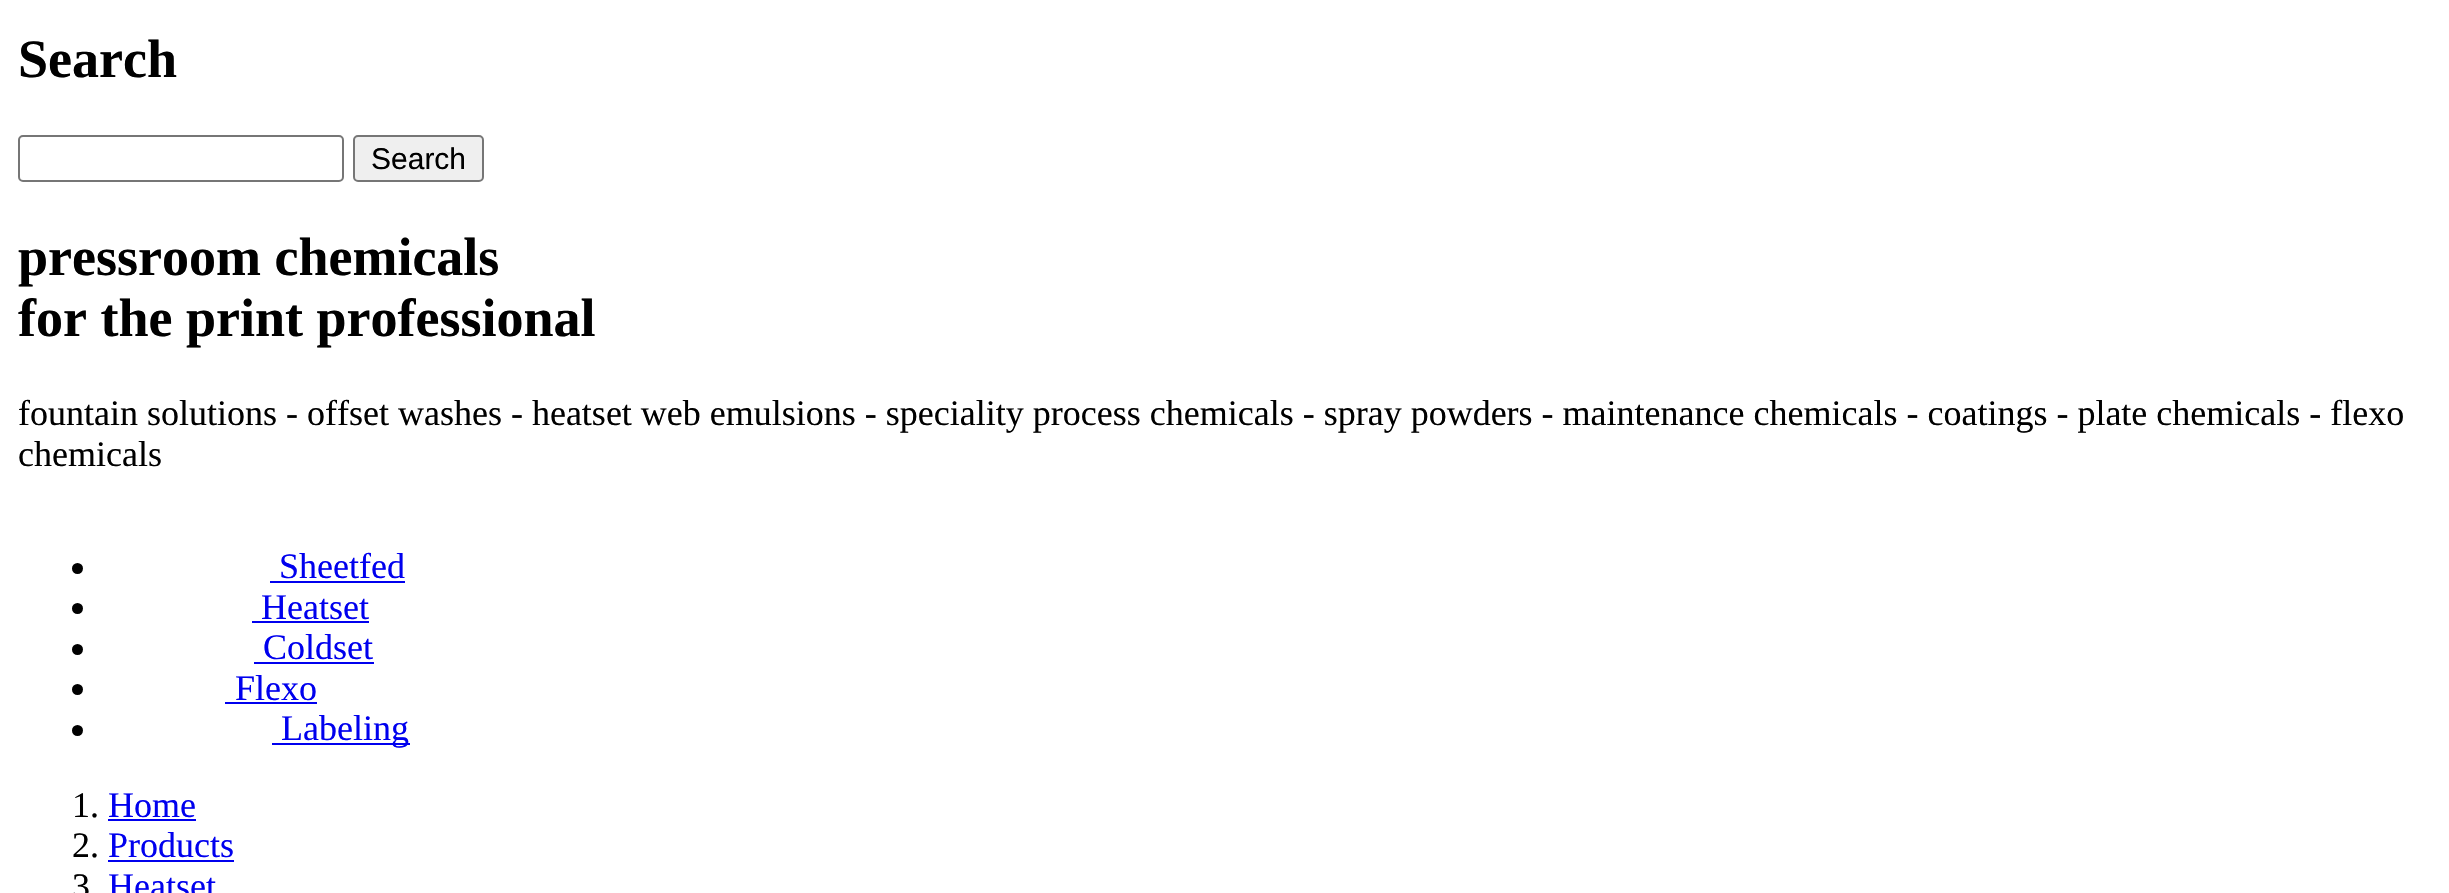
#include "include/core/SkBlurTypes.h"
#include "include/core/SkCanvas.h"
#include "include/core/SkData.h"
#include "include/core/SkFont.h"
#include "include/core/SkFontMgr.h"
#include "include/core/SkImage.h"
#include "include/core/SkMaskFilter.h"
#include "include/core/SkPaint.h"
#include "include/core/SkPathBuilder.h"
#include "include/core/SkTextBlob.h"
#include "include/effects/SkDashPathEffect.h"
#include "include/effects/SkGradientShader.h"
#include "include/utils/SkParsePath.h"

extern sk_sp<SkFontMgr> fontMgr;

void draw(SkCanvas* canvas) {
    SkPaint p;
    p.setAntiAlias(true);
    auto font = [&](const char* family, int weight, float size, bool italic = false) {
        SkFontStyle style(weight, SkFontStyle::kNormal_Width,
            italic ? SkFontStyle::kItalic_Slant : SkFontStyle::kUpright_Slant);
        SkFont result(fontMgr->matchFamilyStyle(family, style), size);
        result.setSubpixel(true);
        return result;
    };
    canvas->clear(0xFFFFFFFF);
    auto font1 = font("Liberation Serif", 700, 54);
    p.setColor(0xFF000000);
    canvas->drawString("Search", 18, 77, font1, p);
    p.setStyle(SkPaint::kStroke_Style);
    p.setStrokeWidth(2);
    p.setColor(0xFF767676);
    canvas->drawRoundRect(SkRect::MakeLTRB(19, 136, 343, 181), 4, 4, p);
    p.setStyle(SkPaint::kFill_Style);
    p.setColor(0xFFEFEFEF);
    canvas->drawRoundRect(SkRect::MakeLTRB(354, 136, 483, 181), 4, 4, p);
    p.setStyle(SkPaint::kStroke_Style);
    p.setColor(0xFF767676);
    canvas->drawRoundRect(SkRect::MakeLTRB(354, 136, 483, 181), 4, 4, p);
    auto font2 = font("Liberation Sans", 400, 30);
    p.setStyle(SkPaint::kFill_Style);
    p.setColor(0xFF000000);
    canvas->drawString("Search", 371, 169, font2, p);
    canvas->drawString("pressroom chemicals", 18, 275, font1, p);
    canvas->drawString("for the print professional", 18, 336, font1, p);
    auto font3 = font("Liberation Serif", 400, 36);
    canvas->drawString("fountain solutions - offset washes - heatset web emulsions - speciality process chemicals - spray powders - maintenance chemicals - coatings - plate chemicals - flexo", 18, 425, font3, p);
    canvas->drawString("chemicals", 18, 466, font3, p);
    canvas->drawCircle(77.5f, 568.5f, 5.5f, p);
    p.setColor(0xFF0000EE);
    canvas->drawString("Sheetfed", 279, 578, font3, p);
    canvas->drawRect(SkRect::MakeLTRB(270, 581, 405, 583), p);
    p.setColor(0xFF000000);
    canvas->drawCircle(77.5f, 608.5f, 5.5f, p);
    p.setColor(0xFF0000EE);
    canvas->drawString("Heatset", 261, 619, font3, p);
    canvas->drawRect(SkRect::MakeLTRB(252, 621, 369, 623), p);
    p.setColor(0xFF000000);
    canvas->drawCircle(77.5f, 649.5f, 5.5f, p);
    p.setColor(0xFF0000EE);
    canvas->drawString("Coldset", 263, 659, font3, p);
    canvas->drawRect(SkRect::MakeLTRB(254, 662, 374, 664), p);
    p.setColor(0xFF000000);
    canvas->drawCircle(77.5f, 689.5f, 5.5f, p);
    p.setColor(0xFF0000EE);
    canvas->drawString("Flexo", 235, 700, font3, p);
    canvas->drawRect(SkRect::MakeLTRB(225, 702, 317, 704), p);
    p.setColor(0xFF000000);
    canvas->drawCircle(77.5f, 730.5f, 5.5f, p);
    p.setColor(0xFF0000EE);
    canvas->drawRect(SkRect::MakeLTRB(272, 743, 410, 745), p);
    canvas->drawString("Labeling", 281, 740, font3, p);
    p.setColor(0xFF000000);
    canvas->drawString("1.", 72, 817, font3, p);
    p.setColor(0xFF0000EE);
    canvas->drawString("Home", 108, 817, font3, p);
    canvas->drawRect(SkRect::MakeLTRB(108, 819, 196, 821), p);
    p.setColor(0xFF000000);
    canvas->drawString("2.", 72, 857, font3, p);
    p.setColor(0xFF0000EE);
    canvas->drawString("Products", 108, 857, font3, p);
    canvas->drawRect(SkRect::MakeLTRB(108, 860, 234, 862), p);
    p.setColor(0xFF000000);
    canvas->drawString("3", 72, 898, font3, p);
    p.setColor(0xFF0000EE);
    canvas->drawString("Heatset", 108, 898, font3, p);
}
